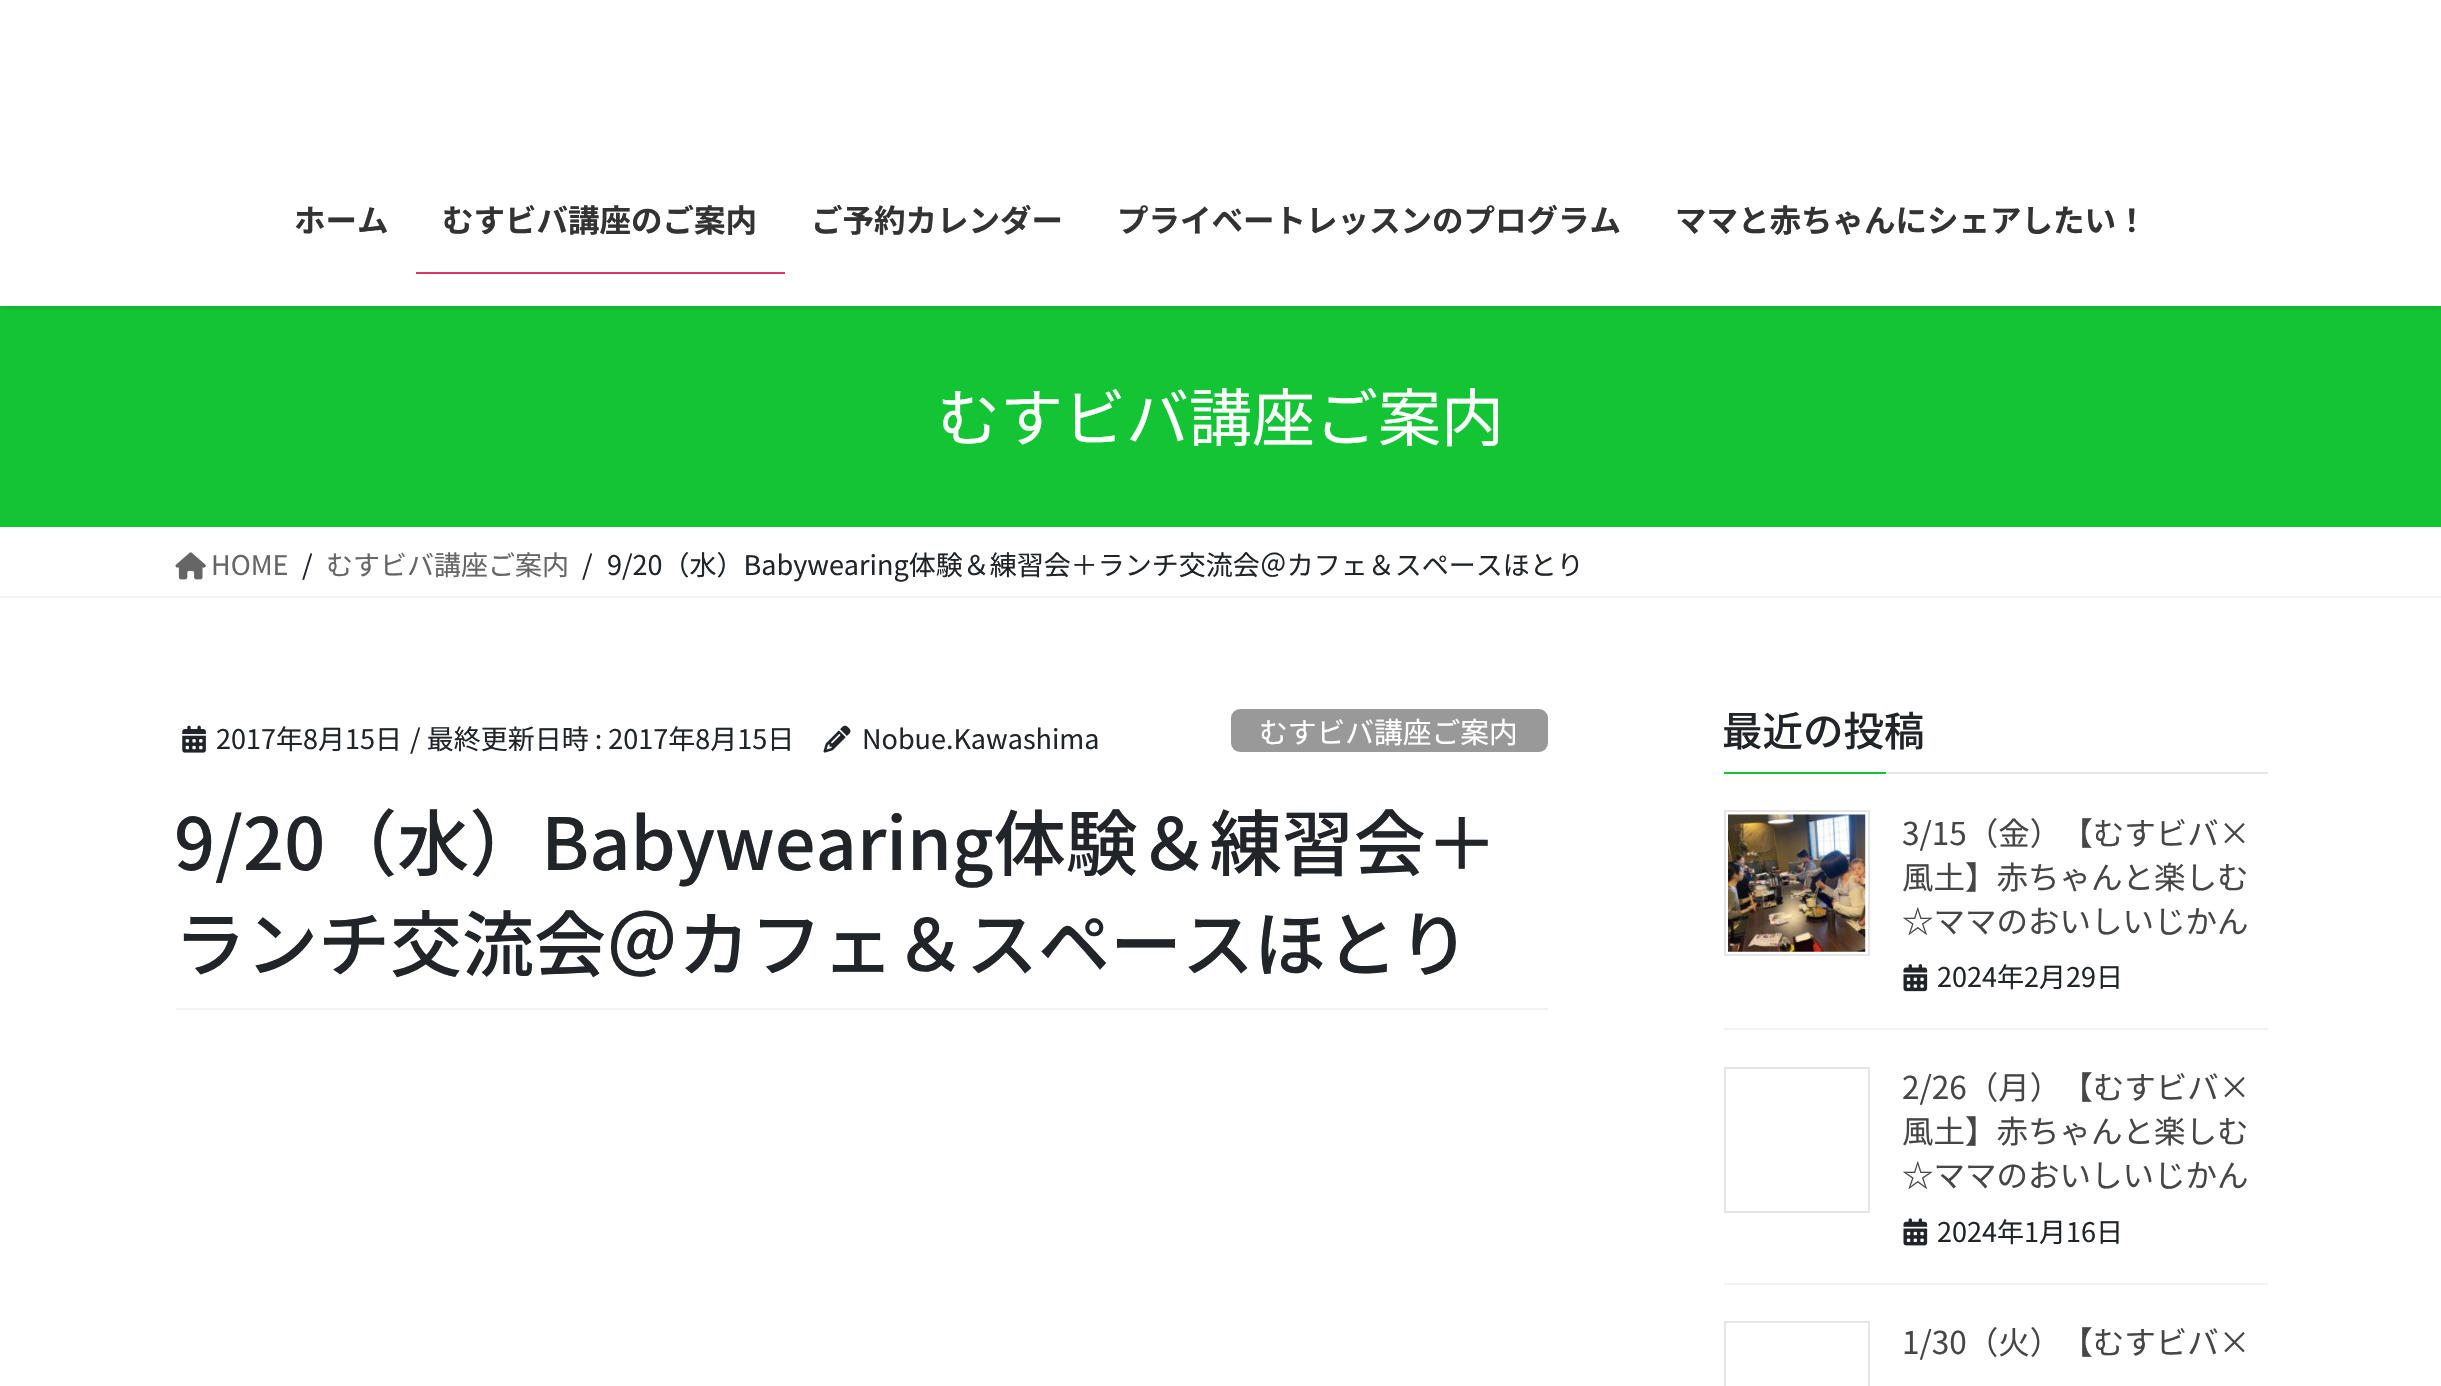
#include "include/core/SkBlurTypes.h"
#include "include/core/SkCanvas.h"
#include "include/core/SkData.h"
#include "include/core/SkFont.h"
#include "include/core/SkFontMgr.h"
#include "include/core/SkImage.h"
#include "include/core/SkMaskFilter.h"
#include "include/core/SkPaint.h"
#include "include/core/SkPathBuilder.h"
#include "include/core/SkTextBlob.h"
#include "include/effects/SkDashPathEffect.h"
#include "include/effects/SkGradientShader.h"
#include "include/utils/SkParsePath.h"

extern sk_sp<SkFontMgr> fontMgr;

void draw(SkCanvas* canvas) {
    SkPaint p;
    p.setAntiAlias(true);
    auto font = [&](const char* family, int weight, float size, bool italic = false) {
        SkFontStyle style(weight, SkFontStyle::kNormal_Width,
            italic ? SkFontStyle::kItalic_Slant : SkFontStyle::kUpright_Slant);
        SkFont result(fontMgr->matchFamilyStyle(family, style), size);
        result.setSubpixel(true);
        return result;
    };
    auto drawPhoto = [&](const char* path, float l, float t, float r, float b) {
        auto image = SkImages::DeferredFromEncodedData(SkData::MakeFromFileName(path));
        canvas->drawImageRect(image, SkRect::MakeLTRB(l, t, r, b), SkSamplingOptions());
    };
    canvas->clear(0xFFFFFFFF);
    p.setColor(0xFF13C434);
    canvas->drawRect(SkRect::MakeLTRB(0, 306, 2441, 527), p);
    canvas->save();
    canvas->clipRect(SkRect::MakeLTRB(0, 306, 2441, 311));
    p.setColor(0x1A000000);
    p.setMaskFilter(SkMaskFilter::MakeBlur(kNormal_SkBlurStyle, 3.5f));
    canvas->drawRect(SkRect::MakeLTRB(0, 2, 2441, 308), p);
    p.setMaskFilter(nullptr);
    canvas->restore();
    auto font1 = font("Noto Sans JP", 700, 31.5f);
    p.setColor(0xFF333333);
    canvas->drawString("ホーム", 294, 232, font1, p);
    canvas->drawString("むすビバ講座のご案内", 442, 232, font1, p);
    p.setColor(0xFFDD3360);
    canvas->drawRect(SkRect::MakeLTRB(416, 272, 785, 274), p);
    p.setColor(0xFF333333);
    {
        const struct { const char* s; float x, y; } items[] = {
            {"ご予約カレンダー", 811, 232},
            {"プライベートレッスンのプログラム", 1117, 232},
            {"ママと赤ちゃんにシェアしたい！", 1675, 232},
        };
        for (auto [s, x, y] : items) {
            canvas->drawString(s, x, y, font1, p);
        }
    }
    auto font2 = font("Noto Sans JP", 400, 63);
    p.setColor(0xFFFFFFFF);
    canvas->drawString("むすビバ講座ご案内", 937, 441, font2, p);
    p.setColor(0xFFF2F2F2);
    canvas->drawRect(SkRect::MakeLTRB(0, 596, 2441, 598), p);
    drawPhoto("media/1.png", 175, 552, 206, 580);
    auto font3 = font("Noto Sans JP", 400, 27);
    p.setColor(0xFF666666);
    canvas->drawString("HOME", 211, 575, font3, p);
    p.setColor(0xFF212529);
    canvas->drawString("/", 302, 575, font3, p);
    p.setColor(0xFF666666);
    canvas->drawString("むすビバ講座ご案内", 326, 575, font3, p);
    p.setColor(0xFF212529);
    canvas->drawString("/", 582, 575, font3, p);
    canvas->drawString("9/20（水）Babywearing体験＆練習会＋ランチ交流会＠カフェ＆スペースほとり", 607, 575, font3, p);
    p.setColor(0xFFF2F2F2);
    canvas->drawRect(SkRect::MakeLTRB(176, 1008, 1548, 1010), p);
    drawPhoto("media/2.png", 182, 725, 206, 753);
    p.setColor(0xFF212529);
    canvas->drawString("2017年8月15日", 216, 749, font3, p);
    canvas->drawString("/ 最終更新日時 : 2017年8月15日", 410, 749, font3, p);
    drawPhoto("media/3.png", 823, 725, 851, 753);
    canvas->drawString("Nobue.Kawashima", 862, 749, font3, p);
    p.setColor(0xFF999999);
    canvas->drawRoundRect(SkRect::MakeLTRB(1231, 709, 1548, 752), 9, 9, p);
    auto font4 = font("Noto Sans JP", 400, 28.75f);
    p.setColor(0xFFFFFFFF);
    canvas->drawString("むすビバ講座ご案内", 1259, 743, font4, p);
    auto font5 = font("Noto Sans JP", 500, 72);
    p.setColor(0xFF212529);
    canvas->drawString("9/20（水）Babywearing体験＆練習会＋", 174, 870, font5, p);
    canvas->drawString("ランチ交流会＠カフェ＆スペースほとり", 174, 971, font5, p);
    p.setColor(0xFFE6E6E6);
    canvas->drawRect(SkRect::MakeLTRB(1886, 772, 2268, 774), p);
    auto font6 = font("Noto Sans JP", 500, 40.5f);
    p.setColor(0xFF212529);
    canvas->drawString("最近の投稿", 1722, 746, font6, p);
    p.setColor(0xFF13C434);
    canvas->drawRect(SkRect::MakeLTRB(1724, 772, 1886, 774), p);
    p.setColor(0xFFF2F2F2);
    canvas->drawRect(SkRect::MakeLTRB(1724, 1028, 2268, 1030), p);
    p.setStyle(SkPaint::kStroke_Style);
    p.setStrokeWidth(2);
    p.setColor(0xFFE5E5E5);
    canvas->drawRect(SkRect::MakeLTRB(1725, 811, 1869, 955), p);
    drawPhoto("media/4.png", 1728, 814, 1866, 952);
    auto font7 = font("Noto Sans JP", 400, 31.5f);
    p.setStyle(SkPaint::kFill_Style);
    p.setColor(0xFF464646);
    {
        const struct { const char* s; float x, y; } items[] = {
            {"3/15（金）【むすビバ×", 1902, 845},
            {"風土】赤ちゃんと楽しむ", 1902, 889},
            {"☆ママのおいしいじかん", 1902, 933},
        };
        for (auto [s, x, y] : items) {
            canvas->drawString(s, x, y, font7, p);
        }
    }
    drawPhoto("media/5.png", 1903, 964, 1928, 992);
    p.setColor(0xFF212529);
    canvas->drawString("2024年2月29日", 1937, 987, font3, p);
    p.setColor(0xFFF2F2F2);
    canvas->drawRect(SkRect::MakeLTRB(1724, 1283, 2268, 1285), p);
    p.setStyle(SkPaint::kStroke_Style);
    p.setColor(0xFFE5E5E5);
    canvas->drawRect(SkRect::MakeLTRB(1725, 1068, 1869, 1212), p);
    p.setStyle(SkPaint::kFill_Style);
    p.setColor(0xFF464646);
    {
        const struct { const char* s; float x, y; } items[] = {
            {"2/26（月）【むすビバ×", 1902, 1099},
            {"風土】赤ちゃんと楽しむ", 1902, 1143},
            {"☆ママのおいしいじかん", 1902, 1187},
        };
        for (auto [s, x, y] : items) {
            canvas->drawString(s, x, y, font7, p);
        }
    }
    drawPhoto("media/6.png", 1903, 1218, 1928, 1246);
    p.setColor(0xFF212529);
    canvas->drawString("2024年1月16日", 1937, 1242, font3, p);
    p.setStyle(SkPaint::kStroke_Style);
    p.setColor(0xFFE5E5E5);
    canvas->drawRect(SkRect::MakeLTRB(1725, 1322, 1869, 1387), p);
    p.setStyle(SkPaint::kFill_Style);
    p.setColor(0xFF464646);
    canvas->drawString("1/30（火）【むすビバ×", 1902, 1354, font7, p);
}
